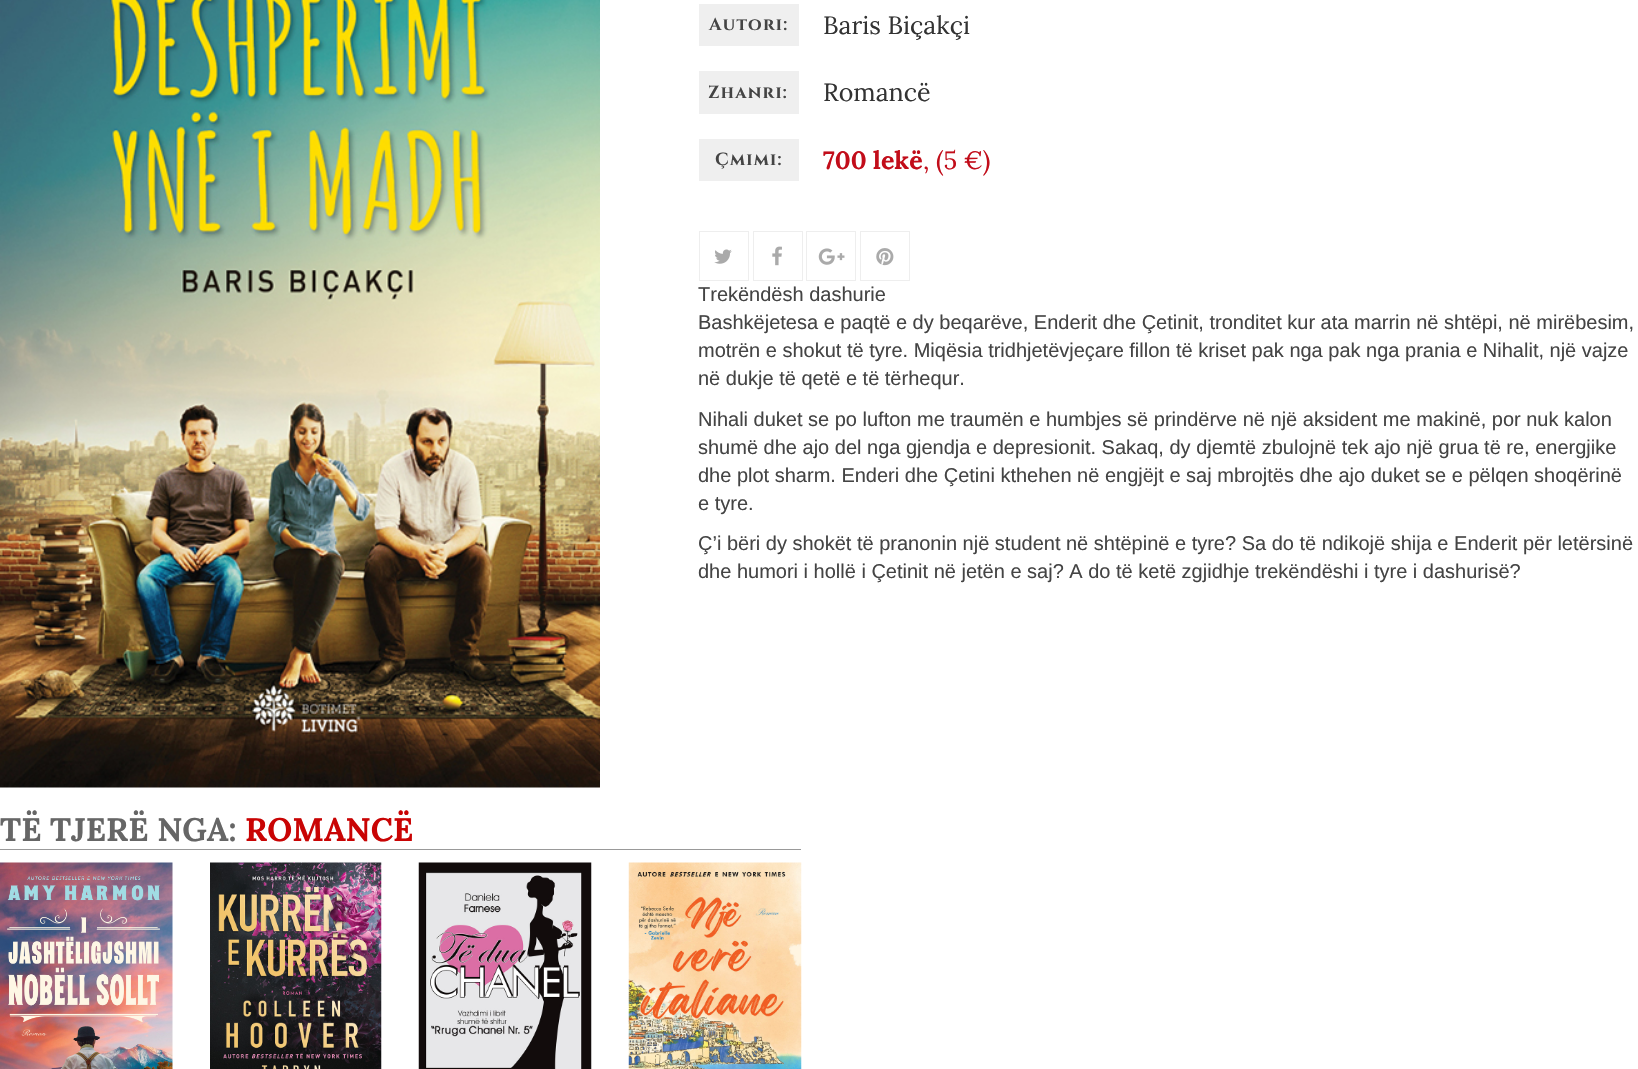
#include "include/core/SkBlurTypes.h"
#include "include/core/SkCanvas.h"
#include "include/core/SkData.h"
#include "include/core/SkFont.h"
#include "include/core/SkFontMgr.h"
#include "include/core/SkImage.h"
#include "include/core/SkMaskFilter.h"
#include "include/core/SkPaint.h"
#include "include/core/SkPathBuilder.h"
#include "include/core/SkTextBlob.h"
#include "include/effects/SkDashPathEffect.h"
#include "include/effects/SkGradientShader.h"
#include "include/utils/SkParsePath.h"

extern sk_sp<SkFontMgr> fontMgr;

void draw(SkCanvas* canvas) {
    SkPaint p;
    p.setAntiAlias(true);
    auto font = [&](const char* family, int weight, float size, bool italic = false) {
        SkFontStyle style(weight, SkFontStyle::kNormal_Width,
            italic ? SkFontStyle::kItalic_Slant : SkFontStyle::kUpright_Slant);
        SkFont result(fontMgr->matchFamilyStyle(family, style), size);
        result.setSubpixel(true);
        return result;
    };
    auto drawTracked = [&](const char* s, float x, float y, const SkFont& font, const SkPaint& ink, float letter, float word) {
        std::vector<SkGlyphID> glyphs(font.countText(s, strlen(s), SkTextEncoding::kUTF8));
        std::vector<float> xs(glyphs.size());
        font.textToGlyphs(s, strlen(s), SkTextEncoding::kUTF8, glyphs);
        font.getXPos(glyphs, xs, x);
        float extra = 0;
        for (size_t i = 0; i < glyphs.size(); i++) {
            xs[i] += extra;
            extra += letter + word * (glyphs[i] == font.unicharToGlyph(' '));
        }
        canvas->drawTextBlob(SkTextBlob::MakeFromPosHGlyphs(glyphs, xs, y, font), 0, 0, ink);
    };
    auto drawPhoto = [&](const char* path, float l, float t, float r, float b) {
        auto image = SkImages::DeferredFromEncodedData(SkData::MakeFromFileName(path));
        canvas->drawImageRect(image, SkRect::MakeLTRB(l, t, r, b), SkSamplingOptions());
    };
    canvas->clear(0xFFFFFFFF);
    drawPhoto("media/1.png", 0, 0, 600, 788);
    p.setColor(0xFFEFEFEF);
    canvas->drawRect(SkRect::MakeLTRB(699, 4, 799, 46), p);
    auto font1 = font("Cinzel", 700, 17.5f);
    p.setColor(0xFF444444);
    drawTracked("Autori:", 709, 30, font1, p, 1.25f, 0);
    auto font2 = font("Lora", 400, 25);
    p.setColor(0xFF333333);
    canvas->drawString("Baris Biçakçi", 823, 34, font2, p);
    p.setColor(0xFFEFEFEF);
    canvas->drawRect(SkRect::MakeLTRB(699, 71, 799, 114), p);
    p.setColor(0xFF444444);
    drawTracked("Zhanri:", 708, 98, font1, p, 1.25f, 0);
    p.setColor(0xFF333333);
    canvas->drawString("Romancë", 823, 101, font2, p);
    p.setColor(0xFFEFEFEF);
    canvas->drawRect(SkRect::MakeLTRB(699, 139, 799, 181), p);
    p.setColor(0xFF444444);
    drawTracked("Çmimi:", 715, 165, font1, p, 1.25f, 0);
    auto font3 = font("Lora", 700, 25);
    p.setColor(0xFFC20D1A);
    canvas->drawString("700 lekë", 823, 169, font3, p);
    canvas->drawString(", (5 €)", 923, 169, font2, p);
    p.setStyle(SkPaint::kStroke_Style);
    p.setStrokeWidth(1);
    p.setColor(0xFFEEEEEE);
    canvas->drawRect(SkRect::MakeLTRB(699.5f, 231.5f, 748.5f, 280.5f), p);
    drawPhoto("media/2.png", 714, 249, 732, 264);
    canvas->drawRect(SkRect::MakeLTRB(753.5f, 231.5f, 802.5f, 280.5f), p);
    drawPhoto("media/3.png", 772, 246, 782, 266);
    canvas->drawRect(SkRect::MakeLTRB(806.5f, 231.5f, 855.5f, 280.5f), p);
    drawPhoto("media/4.png", 818, 248, 845, 265);
    canvas->drawRect(SkRect::MakeLTRB(860.5f, 231.5f, 909.5f, 280.5f), p);
    drawPhoto("media/5.png", 876, 248, 894, 266);
    auto font4 = font("Liberation Sans", 400, 20);
    p.setStyle(SkPaint::kFill_Style);
    p.setColor(0xFF444444);
    {
        const struct { const char* s; float x, y; } items[] = {
            {"Trekëndësh dashurie", 698, 301},
            {"Bashkëjetesa e paqtë e dy beqarëve, Enderit dhe Çetinit, tronditet kur ata marrin në shtëpi, në mirëbesim,", 698, 329},
            {"motrën e shokut të tyre. Miqësia tridhjetëvjeçare fillon të kriset pak nga pak nga prania e Nihalit, një vajze", 698, 357},
            {"në dukje të qetë e të tërhequr.", 698, 385},
            {"Nihali duket se po lufton me traumën e humbjes së prindërve në një aksident me makinë, por nuk kalon", 698, 426},
            {"shumë dhe ajo del nga gjendja e depresionit. Sakaq, dy djemtë zbulojnë tek ajo një grua të re, energjike", 698, 454},
            {"dhe plot sharm. Enderi dhe Çetini kthehen në engjëjt e saj mbrojtës dhe ajo duket se e pëlqen shoqërinë", 698, 482},
            {"e tyre.", 698, 510},
            {"Ç’i bëri dy shokët të pranonin një student në shtëpinë e tyre? Sa do të ndikojë shija e Enderit për letërsinë", 698, 550},
            {"dhe humori i hollë i Çetinit në jetën e saj? A do të ketë zgjidhje trekëndëshi i tyre i dashurisë?", 698, 578},
        };
        for (auto [s, x, y] : items) {
            canvas->drawString(s, x, y, font4, p);
        }
    }
    p.setColor(0xFF999999);
    canvas->drawRect(SkRect::MakeLTRB(0, 849, 801, 850), p);
    auto font5 = font("Lora", 700, 32.5f);
    p.setColor(0xFF666666);
    canvas->drawString("TË TJERË NGA:", 0, 841, font5, p);
    p.setColor(0xFFC90404);
    canvas->drawString("ROMANCË", 245, 841, font5, p);
    drawPhoto("media/6.png", 0, 862, 173, 1069);
    drawPhoto("media/7.png", 210, 862, 382, 1069);
    drawPhoto("media/8.png", 418, 862, 592, 1069);
    drawPhoto("media/9.png", 628, 862, 802, 1069);
}
